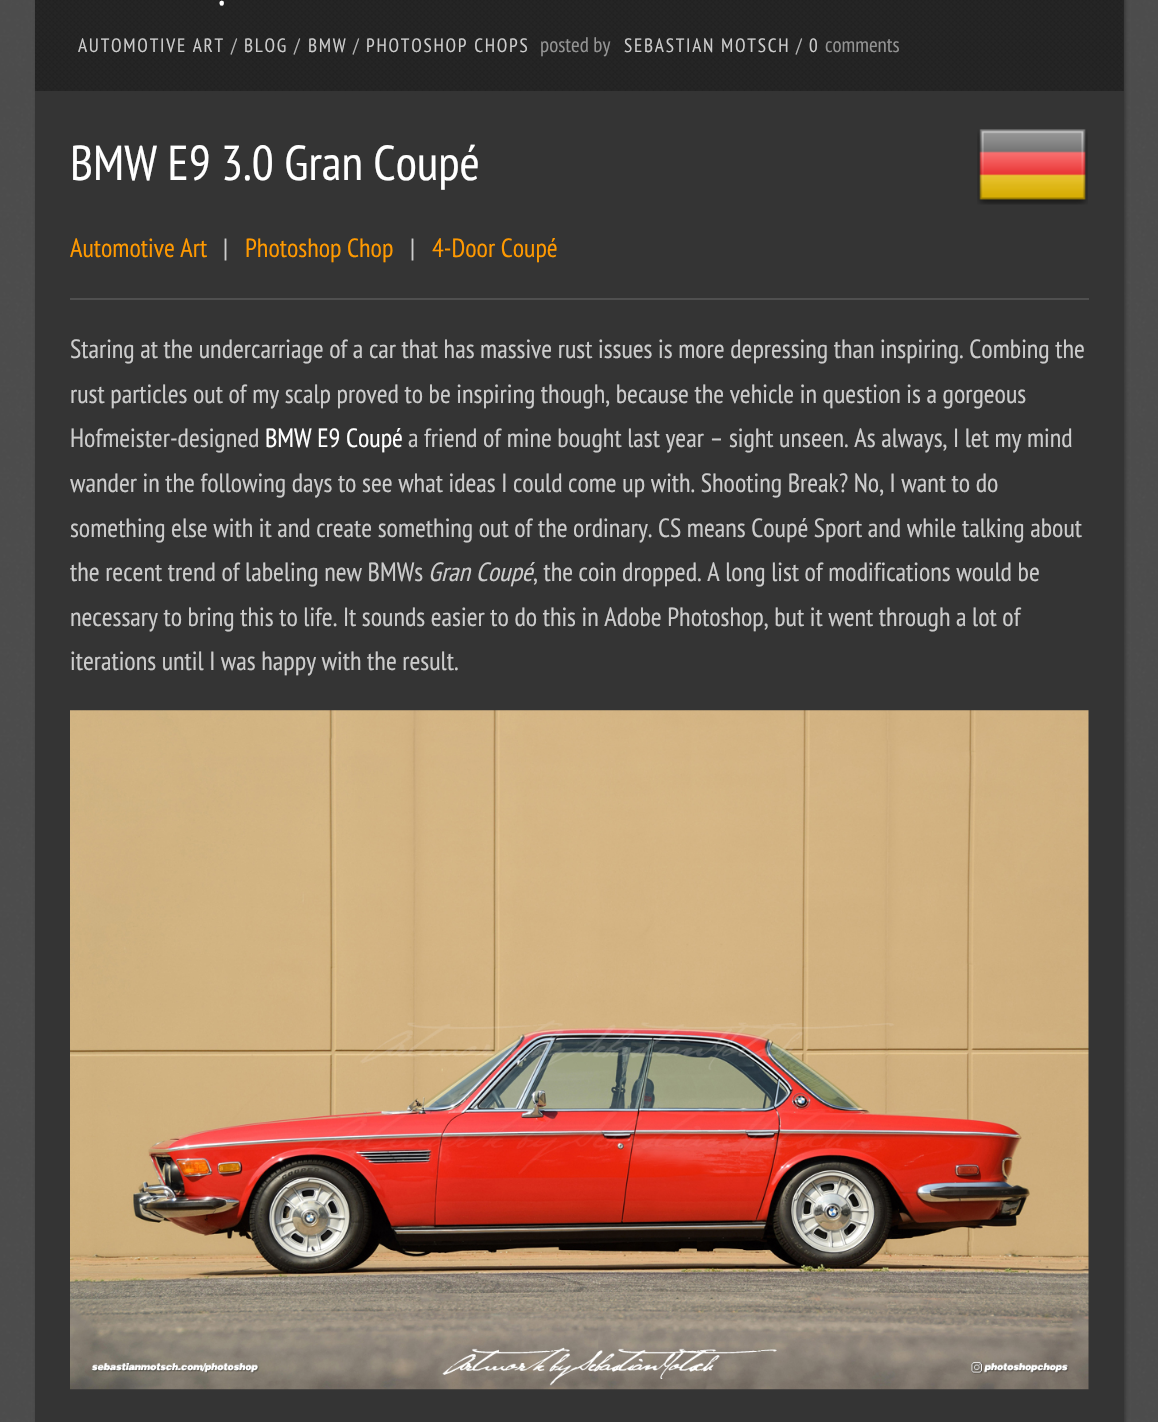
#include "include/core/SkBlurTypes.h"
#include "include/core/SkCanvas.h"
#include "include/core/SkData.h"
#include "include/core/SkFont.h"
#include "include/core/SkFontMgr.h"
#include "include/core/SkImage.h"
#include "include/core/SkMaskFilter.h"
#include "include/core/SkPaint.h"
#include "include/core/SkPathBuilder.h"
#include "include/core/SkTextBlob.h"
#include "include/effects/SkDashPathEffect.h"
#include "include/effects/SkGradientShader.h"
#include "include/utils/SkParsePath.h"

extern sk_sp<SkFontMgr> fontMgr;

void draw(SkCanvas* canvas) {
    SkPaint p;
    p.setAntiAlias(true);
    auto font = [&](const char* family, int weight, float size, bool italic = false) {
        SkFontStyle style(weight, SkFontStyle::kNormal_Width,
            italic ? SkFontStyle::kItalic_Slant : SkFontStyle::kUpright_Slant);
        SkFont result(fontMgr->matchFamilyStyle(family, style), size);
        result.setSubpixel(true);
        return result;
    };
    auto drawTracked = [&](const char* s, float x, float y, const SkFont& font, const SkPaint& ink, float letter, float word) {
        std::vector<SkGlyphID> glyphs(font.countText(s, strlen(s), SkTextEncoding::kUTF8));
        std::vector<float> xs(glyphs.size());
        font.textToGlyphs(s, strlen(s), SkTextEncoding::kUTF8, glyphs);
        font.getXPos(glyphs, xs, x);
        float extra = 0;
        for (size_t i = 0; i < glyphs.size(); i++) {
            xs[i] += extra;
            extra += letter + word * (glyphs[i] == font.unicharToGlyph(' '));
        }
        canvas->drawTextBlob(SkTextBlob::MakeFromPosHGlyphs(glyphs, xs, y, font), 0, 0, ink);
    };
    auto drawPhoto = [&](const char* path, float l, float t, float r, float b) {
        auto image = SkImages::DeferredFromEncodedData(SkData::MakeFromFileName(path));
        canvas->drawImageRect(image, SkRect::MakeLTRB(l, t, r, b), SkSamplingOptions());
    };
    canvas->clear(0xFF6A6A6A);
    drawPhoto("media/1.png", 0, 0, 1158, 1422);
    p.setColor(0xCC2B2B2B);
    p.setMaskFilter(SkMaskFilter::MakeBlur(kNormal_SkBlurStyle, 2));
    canvas->drawRect(SkRect::MakeLTRB(37, -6, 1125, 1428), p);
    p.setMaskFilter(nullptr);
    p.setColor(0xFF343434);
    canvas->drawRect(SkRect::MakeLTRB(35, 91, 1124, 1422), p);
    p.setColor(0xFF262626);
    canvas->drawRect(SkRect::MakeLTRB(35, 0, 1124, 91), p);
    drawPhoto("media/2.png", 35, 0, 1123, 91);
    auto font1 = font("PT Sans Narrow", 400, 42);
    p.setColor(0xFFFFFFFF);
    canvas->drawString(".", 218, 5, font1, p);
    auto font2 = font("PT Sans Narrow", 400, 19.25f);
    p.setColor(0xFFCCCCCC);
    drawTracked("AUTOMOTIVE ART", 78, 52, font2, p, 1.75f, 0);
    p.setColor(0xFFB5B5B5);
    drawTracked("/", 231, 52, font2, p, 1.75f, 0);
    p.setColor(0xFFCCCCCC);
    drawTracked("BLOG", 244, 52, font2, p, 1.75f, 0);
    p.setColor(0xFFB5B5B5);
    drawTracked("/", 294, 52, font2, p, 1.75f, 0);
    p.setColor(0xFFCCCCCC);
    drawTracked("BMW", 308, 52, font2, p, 1.75f, 0);
    p.setColor(0xFFB5B5B5);
    drawTracked("/", 353, 52, font2, p, 1.75f, 0);
    p.setColor(0xFFCCCCCC);
    drawTracked("PHOTOSHOP CHOPS", 366, 52, font2, p, 1.75f, 0);
    auto font3 = font("PT Sans Narrow", 400, 21);
    p.setColor(0xFF949494);
    canvas->drawString("posted by", 540, 52, font3, p);
    p.setColor(0xFFCCCCCC);
    drawTracked("SEBASTIAN MOTSCH", 624, 52, font2, p, 1.75f, 0);
    p.setColor(0xFFB5B5B5);
    drawTracked("/", 796, 52, font2, p, 1.75f, 0);
    p.setColor(0xFFCCCCCC);
    drawTracked("0", 809, 52, font2, p, 1.75f, 0);
    p.setColor(0xFF949494);
    canvas->drawString("comments", 825, 52, font3, p);
    auto font4 = font("PT Sans Narrow", 400, 49);
    p.setColor(0xFFFFFFFF);
    canvas->drawString("BMW E9 3.0 Gran Coupé", 70, 180, font4, p);
    drawPhoto("media/3.png", 977, 129, 1088, 205);
    auto font5 = font("PT Sans Narrow", 400, 26.25f);
    p.setColor(0xFFFF9900);
    canvas->drawString("Automotive Art", 70, 257, font5, p);
    p.setColor(0xFFCCCCCC);
    canvas->drawString("|", 223, 257, font5, p);
    p.setColor(0xFFFF9900);
    canvas->drawString("Photoshop Chop", 245, 257, font5, p);
    p.setColor(0xFFCCCCCC);
    canvas->drawString("|", 410, 257, font5, p);
    p.setColor(0xFFFF9900);
    canvas->drawString("4-Door Coupé", 432, 257, font5, p);
    p.setColor(0xFF4F4F4F);
    canvas->drawRect(SkRect::MakeLTRB(70, 298, 1089, 300), p);
    p.setColor(0xFFCCCCCC);
    {
        const struct { const char* s; float x, y; } items[] = {
            {"Staring at the undercarriage of a car that has massive rust issues is more depressing than inspiring. Combing the", 70, 358},
            {"rust particles out of my scalp proved to be inspiring though, because the vehicle in question is a gorgeous", 70, 403},
            {"Hofmeister-designed", 70, 447},
        };
        for (auto [s, x, y] : items) {
            canvas->drawString(s, x, y, font5, p);
        }
    }
    p.setColor(0xFFFFFFFF);
    canvas->drawString("BMW E9 Coupé", 265, 447, font5, p);
    p.setColor(0xFFCCCCCC);
    {
        const struct { const char* s; float x, y; } items[] = {
            {"a friend of mine bought last year – sight unseen. As always, I let my mind", 408, 447},
            {"wander in the following days to see what ideas I could come up with. Shooting Break? No, I want to do", 70, 492},
            {"something else with it and create something out of the ordinary. CS means Coupé Sport and while talking about", 70, 537},
            {"the recent trend of labeling new BMWs", 70, 581},
        };
        for (auto [s, x, y] : items) {
            canvas->drawString(s, x, y, font5, p);
        }
    }
    auto font6 = font("PT Sans Narrow", 400, 26.25f, true);
    canvas->drawString("Gran Coupé", 428, 581, font6, p);
    {
        const struct { const char* s; float x, y; } items[] = {
            {", the coin dropped. A long list of modifications would be", 533, 581},
            {"necessary to bring this to life. It sounds easier to do this in Adobe Photoshop, but it went through a lot of", 70, 626},
            {"iterations until I was happy with the result.", 70, 670},
        };
        for (auto [s, x, y] : items) {
            canvas->drawString(s, x, y, font5, p);
        }
    }
    drawPhoto("media/4.png", 70, 710, 1089, 1390);
}
